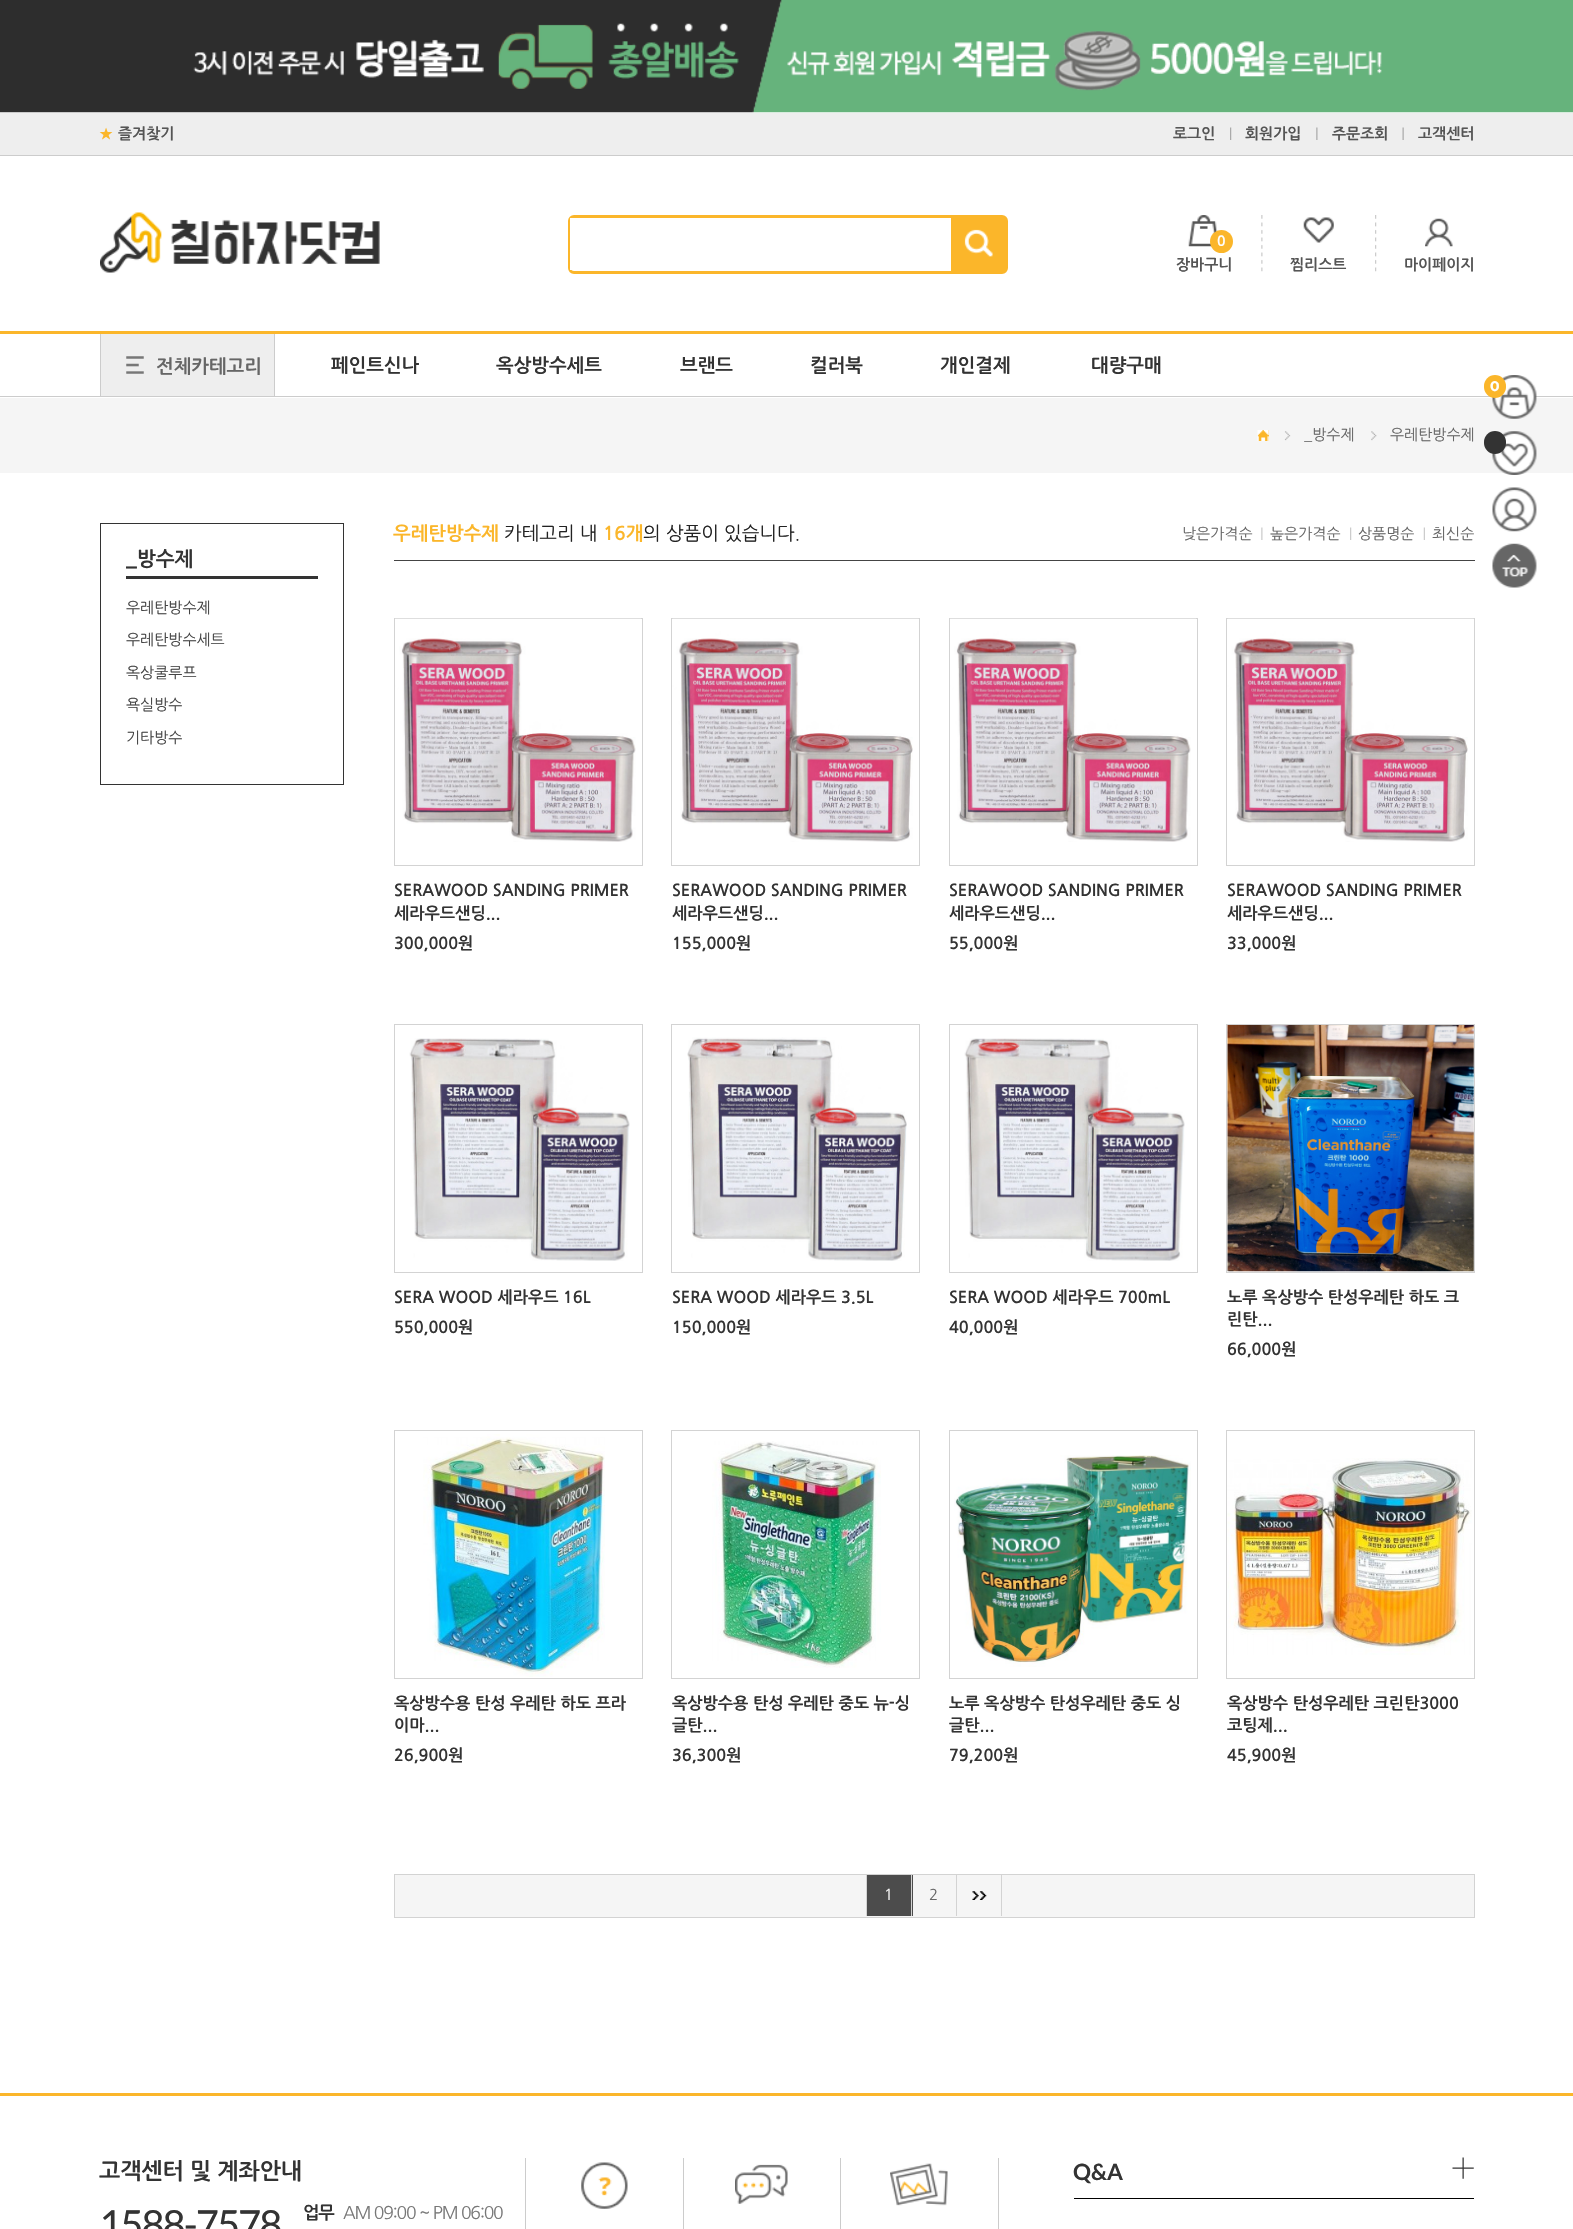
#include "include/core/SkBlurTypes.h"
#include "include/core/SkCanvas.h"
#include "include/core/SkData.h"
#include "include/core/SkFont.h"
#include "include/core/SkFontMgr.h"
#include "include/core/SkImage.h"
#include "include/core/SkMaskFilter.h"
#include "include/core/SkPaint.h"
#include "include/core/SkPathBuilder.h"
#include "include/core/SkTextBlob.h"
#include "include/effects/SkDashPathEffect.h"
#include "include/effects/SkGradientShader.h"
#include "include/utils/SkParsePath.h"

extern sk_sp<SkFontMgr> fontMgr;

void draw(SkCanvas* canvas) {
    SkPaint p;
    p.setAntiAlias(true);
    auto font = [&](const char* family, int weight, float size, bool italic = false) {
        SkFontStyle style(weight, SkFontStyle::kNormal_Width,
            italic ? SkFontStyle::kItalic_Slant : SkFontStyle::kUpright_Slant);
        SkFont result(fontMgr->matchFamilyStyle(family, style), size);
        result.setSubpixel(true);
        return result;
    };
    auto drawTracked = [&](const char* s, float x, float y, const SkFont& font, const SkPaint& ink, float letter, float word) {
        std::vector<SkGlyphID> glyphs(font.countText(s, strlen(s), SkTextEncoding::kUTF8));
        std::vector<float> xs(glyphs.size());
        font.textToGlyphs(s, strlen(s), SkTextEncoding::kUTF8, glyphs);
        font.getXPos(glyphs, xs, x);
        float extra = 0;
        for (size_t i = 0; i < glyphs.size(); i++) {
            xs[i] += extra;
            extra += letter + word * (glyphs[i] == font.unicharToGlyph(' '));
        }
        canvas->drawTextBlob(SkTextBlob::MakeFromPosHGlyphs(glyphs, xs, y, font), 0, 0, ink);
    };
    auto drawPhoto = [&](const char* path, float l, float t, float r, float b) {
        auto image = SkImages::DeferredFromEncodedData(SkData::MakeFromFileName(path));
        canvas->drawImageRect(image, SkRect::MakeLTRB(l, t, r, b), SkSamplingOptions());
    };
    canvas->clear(0xFFFFFFFF);
    drawPhoto("media/1.png", 0, 0, 1573, 113);
    p.setColor(0xFFEEEEEE);
    canvas->drawRect(SkRect::MakeLTRB(0, 113, 1573, 155), p);
    p.setColor(0xFFCCCCCC);
    canvas->drawRect(SkRect::MakeLTRB(0, 155, 1573, 156), p);
    auto font1 = font("NanumGothic", 700, 15);
    p.setColor(0xFFFBB62A);
    canvas->drawString("★", 99, 139, font1, p);
    p.setColor(0xFF555555);
    canvas->drawString("즐겨찾기", 118, 139, font1, p);
    canvas->drawString("로그인", 1173, 139, font1, p);
    drawPhoto("media/2.png", 1230, 127, 1232, 140);
    canvas->drawString("회원가입", 1245, 139, font1, p);
    drawPhoto("media/3.png", 1316, 127, 1318, 140);
    canvas->drawString("주문조회", 1332, 139, font1, p);
    drawPhoto("media/4.png", 1402, 127, 1404, 140);
    canvas->drawString("고객센터", 1418, 139, font1, p);
    drawPhoto("media/5.png", 100, 212, 380, 273);
    p.setStyle(SkPaint::kStroke_Style);
    p.setStrokeWidth(3);
    p.setColor(0xFFFBB62A);
    canvas->drawRoundRect(SkRect::MakeLTRB(569.5f, 216.5f, 1006.5f, 272.5f), 4.5f, 4.5f, p);
    p.setStyle(SkPaint::kFill_Style);
    p.setColor(0xFFFFFFFF);
    canvas->drawRect(SkRect::MakeLTRB(570, 218, 574, 270), p);
    p.setColor(0xFFFBB62A);
    canvas->drawRect(SkRect::MakeLTRB(951, 218, 1005, 271), p);
    drawPhoto("media/6.png", 964, 229, 993, 257);
    drawPhoto("media/7.png", 1188, 215, 1218, 247);
    canvas->drawCircle(1221.5f, 241.5f, 11.5f, p);
    auto font2 = font("NanumGothic", 700, 14);
    p.setColor(0xFFFFFFFF);
    canvas->drawString("0", 1217, 246, font2, p);
    p.setColor(0xFF555555);
    canvas->drawString("장바구니", 1176, 270, font1, p);
    drawPhoto("media/8.png", 1261, 215, 1263, 272);
    drawPhoto("media/9.png", 1303, 217, 1334, 243);
    canvas->drawString("찜리스트", 1290, 270, font1, p);
    drawPhoto("media/10.png", 1375, 215, 1377, 272);
    drawPhoto("media/11.png", 1425, 218, 1453, 247);
    canvas->drawString("마이페이지", 1404, 270, font1, p);
    {
        const struct { float l, t, r, b; SkColor color; } items[] = {
            {0, 331, 1573, 334, 0xFFFBB62A},
            {0, 396, 1573, 397, 0xFFCCCCCC},
            {101, 334, 274, 396, 0xFFEEEEEE},
        };
        for (auto [l, t, r, b, color] : items) {
            p.setColor(color);
            canvas->drawRect(SkRect::MakeLTRB(l, t, r, b), p);
        }
    }
    drawPhoto("media/12.png", 126, 356, 144, 374);
    p.setColor(0xFFCCCCCC);
    canvas->drawRect(SkRect::MakeLTRB(274, 334, 275, 396), p);
    canvas->drawRect(SkRect::MakeLTRB(100, 334, 101, 396), p);
    auto font3 = font("NanumGothic", 700, 18.75f);
    p.setColor(0xFF666666);
    canvas->drawString("전체카테고리", 156, 373, font3, p);
    p.setColor(0xFF333333);
    {
        const struct { const char* s; float x, y; } items[] = {
            {"페인트신나", 331, 372},
            {"옥상방수세트", 496, 372},
            {"브랜드", 680, 372},
            {"컬러북", 810, 372},
            {"개인결제", 940, 372},
            {"대량구매", 1091, 372},
        };
        for (auto [s, x, y] : items) {
            canvas->drawString(s, x, y, font3, p);
        }
    }
    p.setColor(0xFFF5F5F5);
    canvas->drawRect(SkRect::MakeLTRB(0, 398, 1573, 473), p);
    p.setColor(0xFFFBB62A);
    canvas->drawRect(SkRect::MakeLTRB(1258, 430, 1269, 441), p);
    drawPhoto("media/13.png", 1257, 430, 1269, 441);
    drawPhoto("media/14.png", 1284, 431, 1291, 441);
    auto font4 = font("NanumGothic", 400, 15);
    p.setColor(0xFF666666);
    canvas->drawString("_방수제", 1304, 440, font4, p);
    drawPhoto("media/15.png", 1371, 431, 1377, 441);
    canvas->drawString("우레탄방수제", 1390, 440, font4, p);
    p.setStyle(SkPaint::kStroke_Style);
    p.setStrokeWidth(1);
    p.setColor(0xFF333333);
    canvas->drawRect(SkRect::MakeLTRB(100.5f, 523.5f, 343.5f, 784.5f), p);
    p.setStyle(SkPaint::kFill_Style);
    canvas->drawRect(SkRect::MakeLTRB(126, 576, 318, 579), p);
    auto font5 = font("NanumGothic", 700, 20);
    canvas->drawString("_방수제", 126, 566, font5, p);
    p.setColor(0xFF444444);
    {
        const struct { const char* s; float x, y; } items[] = {
            {"우레탄방수제", 126, 613},
            {"우레탄방수세트", 126, 645},
            {"옥상쿨루프", 126, 678},
            {"욕실방수", 126, 710},
            {"기타방수", 126, 743},
        };
        for (auto [s, x, y] : items) {
            canvas->drawString(s, x, y, font4, p);
        }
    }
    canvas->drawRect(SkRect::MakeLTRB(394, 560, 1475, 561), p);
    p.setColor(0xFFFBB62A);
    canvas->drawString("우레탄방수제", 393, 540, font3, p);
    auto font6 = font("NanumGothic", 400, 18.75f);
    p.setColor(0xFF222222);
    canvas->drawString("카테고리 내", 504, 540, font6, p);
    p.setColor(0xFFFBB62A);
    canvas->drawString("16개", 603, 540, font3, p);
    p.setColor(0xFF222222);
    canvas->drawString("의 상품이 있습니다.", 643, 540, font6, p);
    p.setColor(0xFF666666);
    canvas->drawString("낮은가격순", 1182, 539, font4, p);
    drawPhoto("media/16.png", 1261, 527, 1263, 540);
    canvas->drawString("높은가격순", 1270, 539, font4, p);
    drawPhoto("media/17.png", 1350, 527, 1352, 540);
    canvas->drawString("상품명순", 1358, 539, font4, p);
    drawPhoto("media/18.png", 1423, 527, 1425, 540);
    canvas->drawString("최신순", 1432, 539, font4, p);
    p.setStyle(SkPaint::kStroke_Style);
    p.setColor(0xFFD3D3D3);
    canvas->drawRect(SkRect::MakeLTRB(394.5f, 618.5f, 642.5f, 865.5f), p);
    drawPhoto("media/19.png", 395, 618, 641, 842);
    auto font7 = font("NanumGothic", 700, 16.25f);
    p.setStyle(SkPaint::kFill_Style);
    p.setColor(0xFF333333);
    {
        const struct { const char* s; float x, y; } items[] = {
            {"SERAWOOD SANDING PRIMER", 394, 896},
            {"세라우드샌딩...", 394, 919},
            {"300,000원", 394, 949},
        };
        for (auto [s, x, y] : items) {
            canvas->drawString(s, x, y, font7, p);
        }
    }
    p.setStyle(SkPaint::kStroke_Style);
    p.setColor(0xFFD3D3D3);
    canvas->drawRect(SkRect::MakeLTRB(671.5f, 618.5f, 919.5f, 865.5f), p);
    drawPhoto("media/20.png", 672, 618, 919, 842);
    p.setStyle(SkPaint::kFill_Style);
    p.setColor(0xFF333333);
    {
        const struct { const char* s; float x, y; } items[] = {
            {"SERAWOOD SANDING PRIMER", 672, 896},
            {"세라우드샌딩...", 672, 919},
            {"155,000원", 672, 949},
        };
        for (auto [s, x, y] : items) {
            canvas->drawString(s, x, y, font7, p);
        }
    }
    p.setStyle(SkPaint::kStroke_Style);
    p.setColor(0xFFD3D3D3);
    canvas->drawRect(SkRect::MakeLTRB(949.5f, 618.5f, 1197.5f, 865.5f), p);
    drawPhoto("media/19.png", 950, 618, 1196, 842);
    p.setStyle(SkPaint::kFill_Style);
    p.setColor(0xFF333333);
    {
        const struct { const char* s; float x, y; } items[] = {
            {"SERAWOOD SANDING PRIMER", 949, 896},
            {"세라우드샌딩...", 949, 919},
            {"55,000원", 949, 949},
        };
        for (auto [s, x, y] : items) {
            canvas->drawString(s, x, y, font7, p);
        }
    }
    p.setStyle(SkPaint::kStroke_Style);
    p.setColor(0xFFD3D3D3);
    canvas->drawRect(SkRect::MakeLTRB(1226.5f, 618.5f, 1474.5f, 865.5f), p);
    drawPhoto("media/20.png", 1227, 618, 1474, 842);
    p.setStyle(SkPaint::kFill_Style);
    p.setColor(0xFF333333);
    {
        const struct { const char* s; float x, y; } items[] = {
            {"SERAWOOD SANDING PRIMER", 1227, 896},
            {"세라우드샌딩...", 1227, 919},
            {"33,000원", 1227, 949},
        };
        for (auto [s, x, y] : items) {
            canvas->drawString(s, x, y, font7, p);
        }
    }
    p.setStyle(SkPaint::kStroke_Style);
    p.setColor(0xFFD3D3D3);
    canvas->drawRect(SkRect::MakeLTRB(394.5f, 1024.5f, 642.5f, 1272.5f), p);
    drawPhoto("media/21.png", 409, 1038, 630, 1261);
    p.setStyle(SkPaint::kFill_Style);
    p.setColor(0xFF333333);
    canvas->drawString("SERA WOOD 세라우드 16L", 394, 1303, font7, p);
    canvas->drawString("550,000원", 394, 1333, font7, p);
    p.setStyle(SkPaint::kStroke_Style);
    p.setColor(0xFFD3D3D3);
    canvas->drawRect(SkRect::MakeLTRB(671.5f, 1024.5f, 919.5f, 1272.5f), p);
    drawPhoto("media/22.png", 687, 1037, 907, 1261);
    p.setStyle(SkPaint::kFill_Style);
    p.setColor(0xFF333333);
    canvas->drawString("SERA WOOD 세라우드 3.5L", 672, 1303, font7, p);
    canvas->drawString("150,000원", 672, 1333, font7, p);
    p.setStyle(SkPaint::kStroke_Style);
    p.setColor(0xFFD3D3D3);
    canvas->drawRect(SkRect::MakeLTRB(949.5f, 1024.5f, 1197.5f, 1272.5f), p);
    drawPhoto("media/21.png", 964, 1038, 1185, 1261);
    p.setStyle(SkPaint::kFill_Style);
    p.setColor(0xFF333333);
    canvas->drawString("SERA WOOD 세라우드 700mL", 949, 1303, font7, p);
    canvas->drawString("40,000원", 949, 1333, font7, p);
    p.setStyle(SkPaint::kStroke_Style);
    p.setColor(0xFFD3D3D3);
    canvas->drawRect(SkRect::MakeLTRB(1226.5f, 1024.5f, 1474.5f, 1272.5f), p);
    drawPhoto("media/23.png", 1227, 1025, 1474, 1272);
    p.setStyle(SkPaint::kFill_Style);
    p.setColor(0xFF333333);
    {
        const struct { const char* s; float x, y; } items[] = {
            {"노루 옥상방수 탄성우레탄 하도 크", 1227, 1303},
            {"린탄...", 1227, 1325},
            {"66,000원", 1227, 1355},
        };
        for (auto [s, x, y] : items) {
            canvas->drawString(s, x, y, font7, p);
        }
    }
    p.setStyle(SkPaint::kStroke_Style);
    p.setColor(0xFFD3D3D3);
    canvas->drawRect(SkRect::MakeLTRB(394.5f, 1430.5f, 642.5f, 1678.5f), p);
    drawPhoto("media/24.png", 423, 1434, 605, 1677);
    p.setStyle(SkPaint::kFill_Style);
    p.setColor(0xFF333333);
    {
        const struct { const char* s; float x, y; } items[] = {
            {"옥상방수용 탄성 우레탄 하도 프라", 394, 1709},
            {"이마...", 394, 1731},
            {"26,900원", 394, 1761},
        };
        for (auto [s, x, y] : items) {
            canvas->drawString(s, x, y, font7, p);
        }
    }
    p.setStyle(SkPaint::kStroke_Style);
    p.setColor(0xFFD3D3D3);
    canvas->drawRect(SkRect::MakeLTRB(671.5f, 1430.5f, 919.5f, 1678.5f), p);
    drawPhoto("media/25.png", 712, 1441, 881, 1668);
    p.setStyle(SkPaint::kFill_Style);
    p.setColor(0xFF333333);
    {
        const struct { const char* s; float x, y; } items[] = {
            {"옥상방수용 탄성 우레탄 중도 뉴-싱", 672, 1709},
            {"글탄...", 672, 1731},
            {"36,300원", 672, 1761},
        };
        for (auto [s, x, y] : items) {
            canvas->drawString(s, x, y, font7, p);
        }
    }
    p.setStyle(SkPaint::kStroke_Style);
    p.setColor(0xFFD3D3D3);
    canvas->drawRect(SkRect::MakeLTRB(949.5f, 1430.5f, 1197.5f, 1678.5f), p);
    drawPhoto("media/26.png", 954, 1455, 1191, 1667);
    p.setStyle(SkPaint::kFill_Style);
    p.setColor(0xFF333333);
    {
        const struct { const char* s; float x, y; } items[] = {
            {"노루 옥상방수 탄성우레탄 중도 싱", 949, 1709},
            {"글탄...", 949, 1731},
            {"79,200원", 949, 1761},
        };
        for (auto [s, x, y] : items) {
            canvas->drawString(s, x, y, font7, p);
        }
    }
    p.setStyle(SkPaint::kStroke_Style);
    p.setColor(0xFFD3D3D3);
    canvas->drawRect(SkRect::MakeLTRB(1226.5f, 1430.5f, 1474.5f, 1678.5f), p);
    drawPhoto("media/27.png", 1227, 1458, 1472, 1655);
    p.setStyle(SkPaint::kFill_Style);
    p.setColor(0xFF333333);
    {
        const struct { const char* s; float x, y; } items[] = {
            {"옥상방수 탄성우레탄 크린탄3000", 1227, 1709},
            {"코팅제...", 1227, 1731},
            {"45,900원", 1227, 1761},
        };
        for (auto [s, x, y] : items) {
            canvas->drawString(s, x, y, font7, p);
        }
    }
    p.setColor(0xFFF5F5F5);
    canvas->drawRect(SkRect::MakeLTRB(394.5f, 1874.5f, 1474.5f, 1917.5f), p);
    p.setStyle(SkPaint::kStroke_Style);
    p.setColor(0xFFD3D3D3);
    canvas->drawRect(SkRect::MakeLTRB(394.5f, 1874.5f, 1474.5f, 1917.5f), p);
    p.setStyle(SkPaint::kFill_Style);
    {
        const struct { float l, t, r, b; SkColor color; } items[] = {
            {867, 1875, 913, 1916, 0xFF4C4C4C},
            {911, 1875, 912, 1916, 0xFFD3D3D3},
            {866, 1875, 867, 1916, 0xFFD3D3D3},
        };
        for (auto [l, t, r, b, color] : items) {
            p.setColor(color);
            canvas->drawRect(SkRect::MakeLTRB(l, t, r, b), p);
        }
    }
    p.setColor(0xFFFFFFFF);
    canvas->drawString("1", 884, 1900, font4, p);
    p.setColor(0xFFD3D3D3);
    canvas->drawRect(SkRect::MakeLTRB(956, 1875, 957, 1916), p);
    p.setColor(0xFF666666);
    canvas->drawString("2", 929, 1900, font4, p);
    drawPhoto("media/28.png", 972, 1891, 987, 1900);
    p.setColor(0xFFD3D3D3);
    canvas->drawRect(SkRect::MakeLTRB(1001, 1875, 1002, 1916), p);
    p.setColor(0xFFFBB62A);
    canvas->drawRect(SkRect::MakeLTRB(0, 2093, 1573, 2096), p);
    auto font8 = font("NanumGothic", 700, 22.5f);
    p.setColor(0xFF333333);
    canvas->drawString("고객센터 및 계좌안내", 99, 2179, font8, p);
    auto font9 = font("Lato", 400, 40);
    drawTracked("1588-7578", 99, 2239, font9, p, -2, 0);
    auto font10 = font("NanumGothic", 700, 17.5f);
    drawTracked("업무", 303, 2219, font10, p, -1.25f, 0);
    auto font11 = font("NanumGothic", 400, 17.5f);
    p.setColor(0xFF777777);
    drawTracked("AM 09:00 ~ PM 06:00", 343, 2219, font11, p, -1.25f, 0);
    p.setColor(0xFFCCCCCC);
    canvas->drawRect(SkRect::MakeLTRB(525, 2158, 526, 2229), p);
    drawPhoto("media/29.png", 581, 2162, 628, 2209);
    canvas->drawRect(SkRect::MakeLTRB(683, 2158, 684, 2229), p);
    drawPhoto("media/30.png", 735, 2164, 788, 2204);
    canvas->drawRect(SkRect::MakeLTRB(998, 2158, 999, 2229), p);
    canvas->drawRect(SkRect::MakeLTRB(840, 2158, 841, 2229), p);
    drawPhoto("media/31.png", 890, 2163, 948, 2206);
    p.setColor(0xFF000000);
    canvas->drawRect(SkRect::MakeLTRB(1074, 2198, 1474, 2199), p);
    auto font12 = font("Lato", 700, 22.5f);
    p.setColor(0xFF333333);
    canvas->drawString("Q&A", 1073, 2180, font12, p);
    drawPhoto("media/32.png", 1452, 2157, 1474, 2179);
    drawPhoto("media/33.png", 1492, 375, 1537, 419);
    p.setColor(0xFFFBB62A);
    canvas->drawRoundRect(SkRect::MakeLTRB(1484, 375, 1506, 398), 11, 11, p);
    auto font13 = font("Montserrat", 700, 14);
    p.setColor(0xFFFFFFFF);
    canvas->drawString("0", 1490, 391, font13, p);
    drawPhoto("media/34.png", 1492, 431, 1537, 475);
    p.setColor(0xFF333333);
    canvas->drawRoundRect(SkRect::MakeLTRB(1484, 431, 1506, 454), 11, 11, p);
    drawPhoto("media/35.png", 1492, 487, 1537, 532);
    drawPhoto("media/36.png", 1492, 543, 1537, 588);
}
